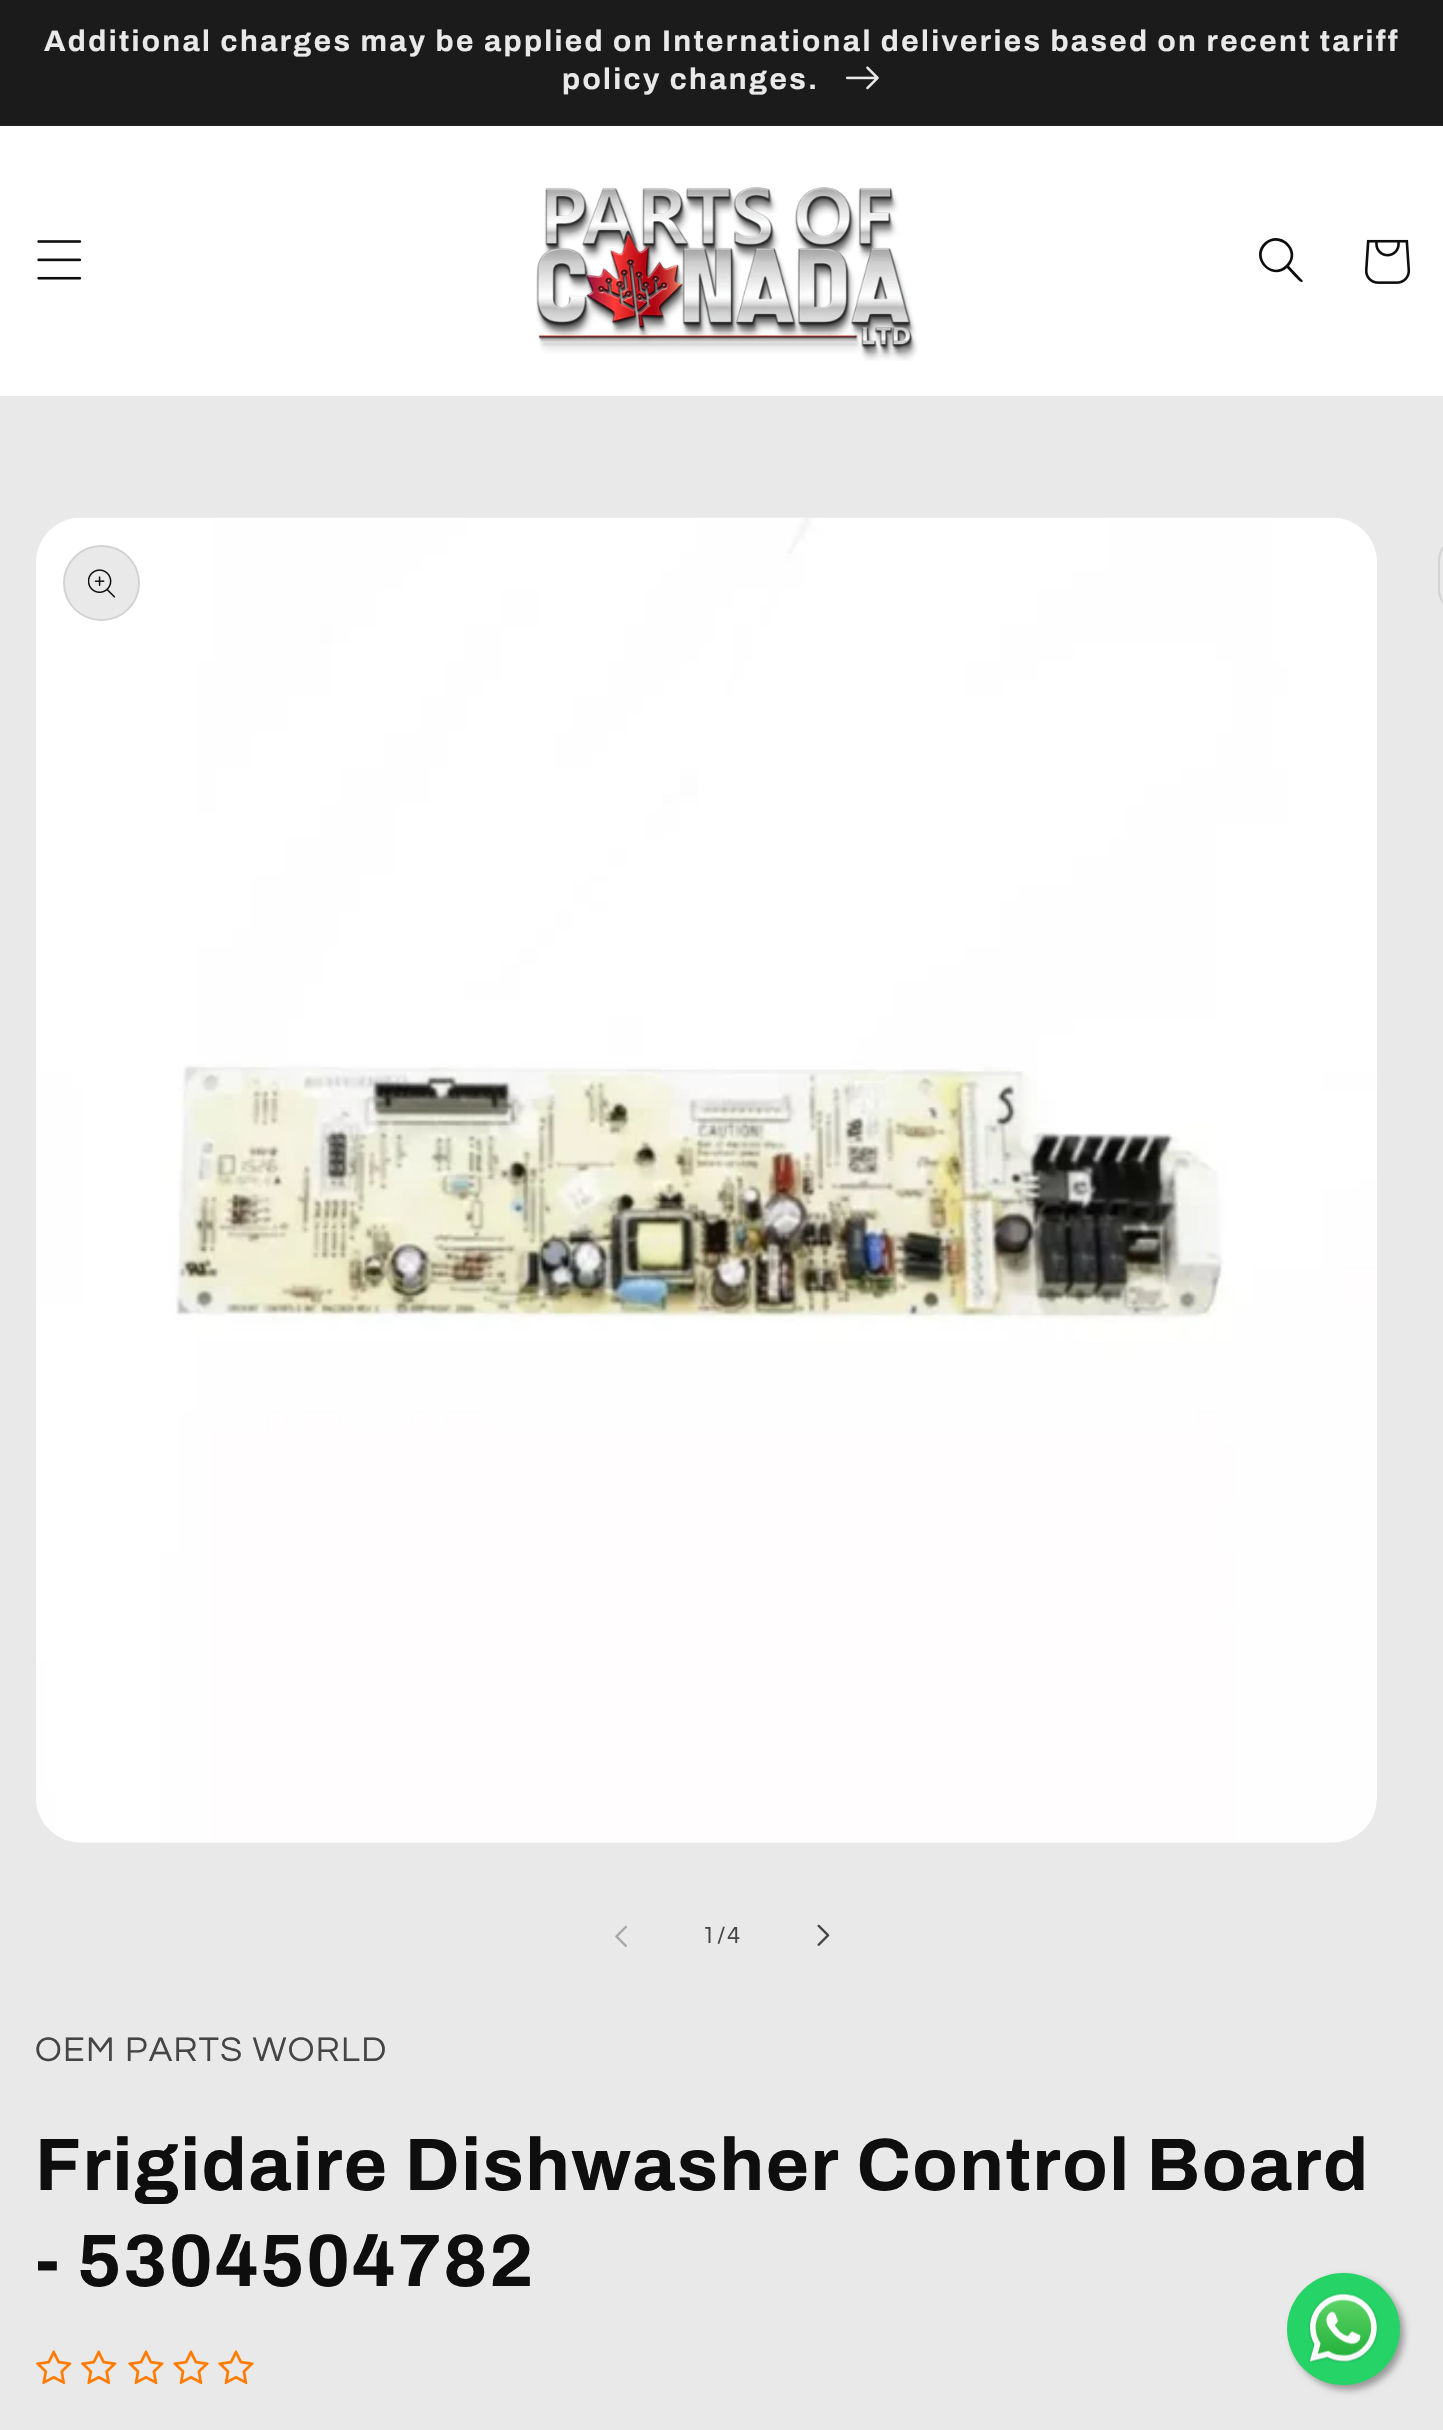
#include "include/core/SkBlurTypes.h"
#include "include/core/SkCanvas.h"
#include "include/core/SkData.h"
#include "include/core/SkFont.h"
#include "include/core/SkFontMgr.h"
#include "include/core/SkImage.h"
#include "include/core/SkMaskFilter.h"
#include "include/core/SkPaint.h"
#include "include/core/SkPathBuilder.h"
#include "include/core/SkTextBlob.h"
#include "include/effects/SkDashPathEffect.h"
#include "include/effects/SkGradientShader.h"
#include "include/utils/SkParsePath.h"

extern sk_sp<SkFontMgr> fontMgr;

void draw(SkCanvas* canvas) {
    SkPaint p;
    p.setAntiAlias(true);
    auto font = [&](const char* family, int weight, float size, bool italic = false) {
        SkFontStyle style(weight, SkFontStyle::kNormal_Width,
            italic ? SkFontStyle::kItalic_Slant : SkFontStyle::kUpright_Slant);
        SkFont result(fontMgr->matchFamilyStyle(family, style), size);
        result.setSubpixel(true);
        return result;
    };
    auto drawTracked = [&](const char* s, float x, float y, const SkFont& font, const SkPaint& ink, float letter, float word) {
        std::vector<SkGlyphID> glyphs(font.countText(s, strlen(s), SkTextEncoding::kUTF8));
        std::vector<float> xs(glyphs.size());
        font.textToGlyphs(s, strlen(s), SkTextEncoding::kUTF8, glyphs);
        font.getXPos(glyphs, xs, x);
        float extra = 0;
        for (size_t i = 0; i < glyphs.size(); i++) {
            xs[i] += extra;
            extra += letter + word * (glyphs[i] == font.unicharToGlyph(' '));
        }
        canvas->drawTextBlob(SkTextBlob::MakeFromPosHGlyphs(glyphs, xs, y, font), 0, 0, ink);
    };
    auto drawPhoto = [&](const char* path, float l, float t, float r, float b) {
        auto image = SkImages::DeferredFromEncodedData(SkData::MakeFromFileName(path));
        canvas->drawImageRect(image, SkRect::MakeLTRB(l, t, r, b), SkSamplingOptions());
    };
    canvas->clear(0xFFEAE9E9);
    p.setColor(0xFF212020);
    canvas->drawRect(SkRect::MakeLTRB(0, 124, 1443, 126), p);
    p.setColor(0xFF1C1B1B);
    canvas->drawRect(SkRect::MakeLTRB(0, 0, 1443, 124), p);
    auto font1 = font("Archivo", 700, 29.7f);
    p.setColor(0xFFEAE9E9);
    drawTracked("Additional charges may be applied on International deliveries based on recent tariff", 44, 51, font1, p, 2.35f, 0);
    drawTracked("policy changes.", 562, 89, font1, p, 2.35f, 0);
    drawPhoto("media/1.png", 846, 66, 879, 90);
    p.setColor(0xFFFFFFFF);
    canvas->drawRect(SkRect::MakeLTRB(0, 126, 1443, 396), p);
    drawPhoto("media/2.png", 37, 240, 82, 280);
    drawPhoto("media/3.png", 536, 187, 918, 361);
    p.setColor(0xFF0F0E0E);
    canvas->drawPath(SkPathBuilder(SkPathFillType::kEvenOdd).moveTo(1286, 265).cubicTo(1273, 279, 1253, 258, 1266, 245).cubicTo(1279, 232, 1300, 252, 1286, 265).close().moveTo(1287, 268).cubicTo(1271, 282, 1249, 258, 1264, 243).cubicTo(1280, 228, 1303, 250, 1289, 266).lineTo(1303, 281).lineTo(1302, 282).cubicTo(1300, 283, 1289, 270, 1287, 268).close().detach(), p);
    drawPhoto("media/4.png", 1364, 239, 1411, 284);
    drawPhoto("media/5.png", 36, 517, 1377, 1843);
    p.setColor(0xFFEAE9E9);
    canvas->drawRoundRect(SkRect::MakeLTRB(63, 545, 140, 621), 38, 38, p);
    p.setStyle(SkPaint::kStroke_Style);
    p.setStrokeWidth(2);
    p.setColor(0x1A0F0E0E);
    canvas->drawRoundRect(SkRect::MakeLTRB(64, 546, 139, 620), 37, 37, p);
    drawPhoto("media/6.png", 88, 569, 115, 598);
    p.setColor(0xFFD4D3D3);
    canvas->drawRoundRect(SkRect::MakeLTRB(1439, 539, 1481, 611), 36, 36, p);
    drawPhoto("media/7.png", 615, 1925, 627, 1947);
    auto font2 = font("Questrial", 400, 24);
    p.setStyle(SkPaint::kFill_Style);
    p.setColor(0xFF464545);
    drawTracked("1/4", 702, 1943, font2, p, 1.5f, 0);
    drawPhoto("media/8.png", 817, 1924, 830, 1946);
    auto font3 = font("Questrial", 400, 35.5f);
    drawTracked("OEM PARTS WORLD", 35, 2061, font3, p, 1.4f, 0);
    auto font4 = font("Archivo", 700, 74.25f);
    p.setColor(0xFF0F0E0E);
    drawTracked("Frigidaire Dishwasher Control Board", 35, 2190, font4, p, 1.5f, 0);
    drawTracked("- 5304504782", 35, 2286, font4, p, 1.5f, 0);
    drawPhoto("media/9.png", 36, 2350, 72, 2385);
    drawPhoto("media/9.png", 81, 2350, 117, 2385);
    drawPhoto("media/10.png", 128, 2350, 164, 2385);
    drawPhoto("media/10.png", 173, 2350, 209, 2385);
    drawPhoto("media/10.png", 218, 2350, 254, 2385);
    p.setColor(0xFF999999);
    p.setMaskFilter(SkMaskFilter::MakeBlur(kNormal_SkBlurStyle, 3.5f));
    canvas->drawRoundRect(SkRect::MakeLTRB(1292, 2277, 1404, 2390), 56, 56, p);
    p.setMaskFilter(nullptr);
    p.setColor(0xFF25D366);
    canvas->drawRoundRect(SkRect::MakeLTRB(1287, 2273, 1400, 2385), 56, 56, p);
    drawPhoto("media/11.png", 1308, 2293, 1379, 2363);
}
